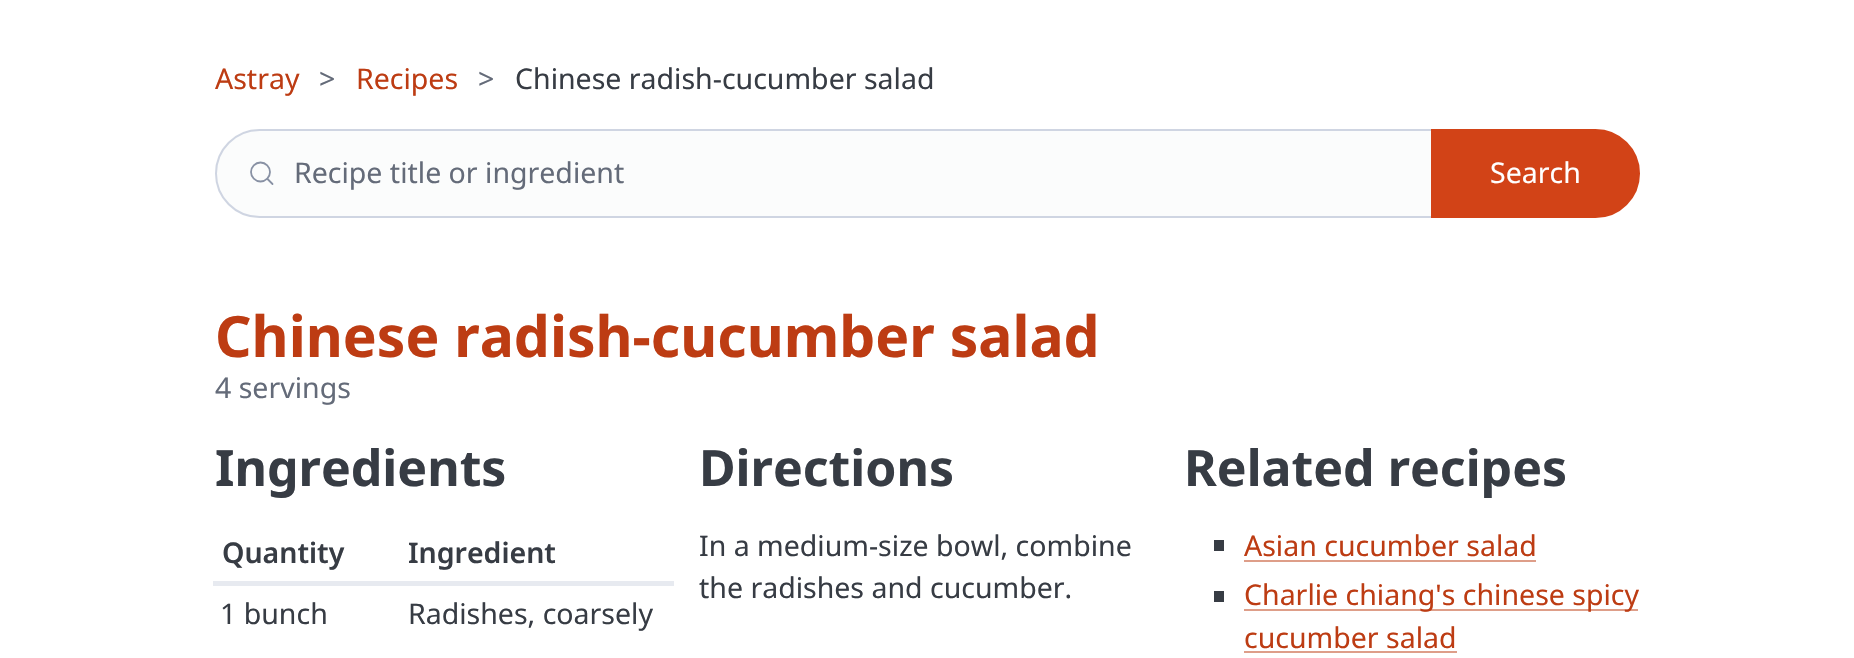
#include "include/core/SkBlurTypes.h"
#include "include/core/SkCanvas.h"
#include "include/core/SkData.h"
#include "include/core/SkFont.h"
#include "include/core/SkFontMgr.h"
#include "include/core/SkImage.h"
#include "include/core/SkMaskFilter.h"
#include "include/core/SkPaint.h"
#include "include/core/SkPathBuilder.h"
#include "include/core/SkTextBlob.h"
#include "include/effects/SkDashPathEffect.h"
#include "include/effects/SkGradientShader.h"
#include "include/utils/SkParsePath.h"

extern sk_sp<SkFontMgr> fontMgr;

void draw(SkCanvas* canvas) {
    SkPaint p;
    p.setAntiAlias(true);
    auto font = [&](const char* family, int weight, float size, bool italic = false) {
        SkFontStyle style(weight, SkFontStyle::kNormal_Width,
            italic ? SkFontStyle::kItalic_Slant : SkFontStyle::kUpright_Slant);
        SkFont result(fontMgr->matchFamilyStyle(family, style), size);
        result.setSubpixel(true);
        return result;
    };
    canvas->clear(0xFFFFFFFF);
    auto font1 = font("Noto Sans", 400, 28.5f);
    p.setColor(0xFFBD3C13);
    canvas->drawString("Astray", 215, 89, font1, p);
    p.setColor(0xFF646B79);
    canvas->drawString(">", 319, 89, font1, p);
    p.setColor(0xFFBD3C13);
    canvas->drawString("Recipes", 356, 89, font1, p);
    p.setColor(0xFF646B79);
    canvas->drawString(">", 478, 89, font1, p);
    p.setColor(0xFF373C44);
    canvas->drawString("Chinese radish-cucumber salad", 515, 89, font1, p);
    p.setColor(0xFFFBFCFC);
    canvas->drawPath(SkPathBuilder().moveTo(259.5f, 129).lineTo(1434, 129).lineTo(1434, 218).lineTo(259.5f, 218).cubicTo(235, 218, 215, 198, 215, 173.5f).cubicTo(215, 149, 235, 129, 259.5f, 129).close().detach(), p);
    p.setStyle(SkPaint::kStroke_Style);
    p.setStrokeWidth(1.8f);
    p.setColor(0xFF8891A4);
    canvas->drawCircle(260.5f, 172, 9.5f, p);
    p.setStrokeCap(SkPaint::kRound_Cap);
    p.setStrokeJoin(SkPaint::kRound_Join);
    canvas->drawPath(SkPathBuilder().moveTo(272.5f, 184).lineTo(267.5f, 179).detach(), p);
    p.setStrokeWidth(2);
    p.setStrokeCap(SkPaint::kButt_Cap);
    p.setStrokeJoin(SkPaint::kMiter_Join);
    p.setColor(0xFFCFD5E2);
    canvas->drawPath(SkPathBuilder().moveTo(259.5f, 130).lineTo(1433, 130).lineTo(1433, 217).lineTo(259.5f, 217).cubicTo(235.5f, 217, 216, 197.5f, 216, 173.5f).cubicTo(216, 149.5f, 235.5f, 130, 259.5f, 130).close().detach(), p);
    p.setStyle(SkPaint::kFill_Style);
    p.setColor(0xFF646B79);
    canvas->drawString("Recipe title or ingredient", 294, 183, font1, p);
    p.setColor(0xFFD24317);
    canvas->drawPath(SkPathBuilder().moveTo(1432, 130).lineTo(1595.5f, 130).cubicTo(1619.5f, 130, 1639, 149.5f, 1639, 173.5f).cubicTo(1639, 197.5f, 1619.5f, 217, 1595.5f, 217).lineTo(1432, 217).close().detach(), p);
    p.setStyle(SkPaint::kStroke_Style);
    canvas->drawPath(SkPathBuilder().moveTo(1432, 130).lineTo(1595.5f, 130).cubicTo(1619.5f, 130, 1639, 149.5f, 1639, 173.5f).cubicTo(1639, 197.5f, 1619.5f, 217, 1595.5f, 217).lineTo(1432, 217).close().detach(), p);
    p.setStyle(SkPaint::kFill_Style);
    p.setColor(0xFFFFFFFF);
    canvas->drawString("Search", 1490, 183, font1, p);
    auto font2 = font("Noto Sans", 700, 57);
    p.setColor(0xFFBD3C13);
    canvas->drawString("Chinese radish-cucumber salad", 215, 357, font2, p);
    p.setColor(0xFF646B79);
    canvas->drawString("4 servings", 215, 398, font1, p);
    auto font3 = font("Noto Sans", 700, 50);
    p.setColor(0xFF373C44);
    canvas->drawString("Ingredients", 215, 486, font3, p);
    auto font4 = font("Noto Sans", 600, 28.5f);
    canvas->drawString("Quantity", 222, 563, font4, p);
    p.setColor(0xFFE7EAF0);
    canvas->drawRect(SkRect::MakeLTRB(213, 581, 674, 586), p);
    p.setColor(0xFF373C44);
    canvas->drawString("Ingredient", 408, 563, font4, p);
    canvas->drawString("1 bunch", 220, 624, font1, p);
    canvas->drawString("Radishes, coarsely", 408, 624, font1, p);
    canvas->drawString("Directions", 699, 486, font3, p);
    canvas->drawString("In a medium-size bowl, combine", 699, 556, font1, p);
    canvas->drawString("the radishes and cucumber.", 699, 598, font1, p);
    canvas->drawString("Related recipes", 1184, 486, font3, p);
    canvas->drawRect(SkRect::MakeLTRB(1214, 540, 1224, 551), p);
    p.setColor(0xFFBD3C13);
    canvas->drawString("Asian cucumber salad", 1244, 556, font1, p);
    {
        const struct { float l, t, r, b; SkColor color; } items[] = {
            {1244, 560, 1536, 562, 0xFFDE9E89},
            {1214, 591, 1224, 602, 0xFF373C44},
            {1244, 609, 1638, 611, 0xFFDE9E89},
        };
        for (auto [l, t, r, b, color] : items) {
            p.setColor(color);
            canvas->drawRect(SkRect::MakeLTRB(l, t, r, b), p);
        }
    }
    p.setColor(0xFFBD3C13);
    canvas->drawString("Charlie chiang's chinese spicy", 1244, 605, font1, p);
    canvas->drawString("cucumber salad", 1244, 648, font1, p);
    p.setColor(0xFFDE9E89);
    canvas->drawRect(SkRect::MakeLTRB(1244, 651, 1457, 653), p);
}
